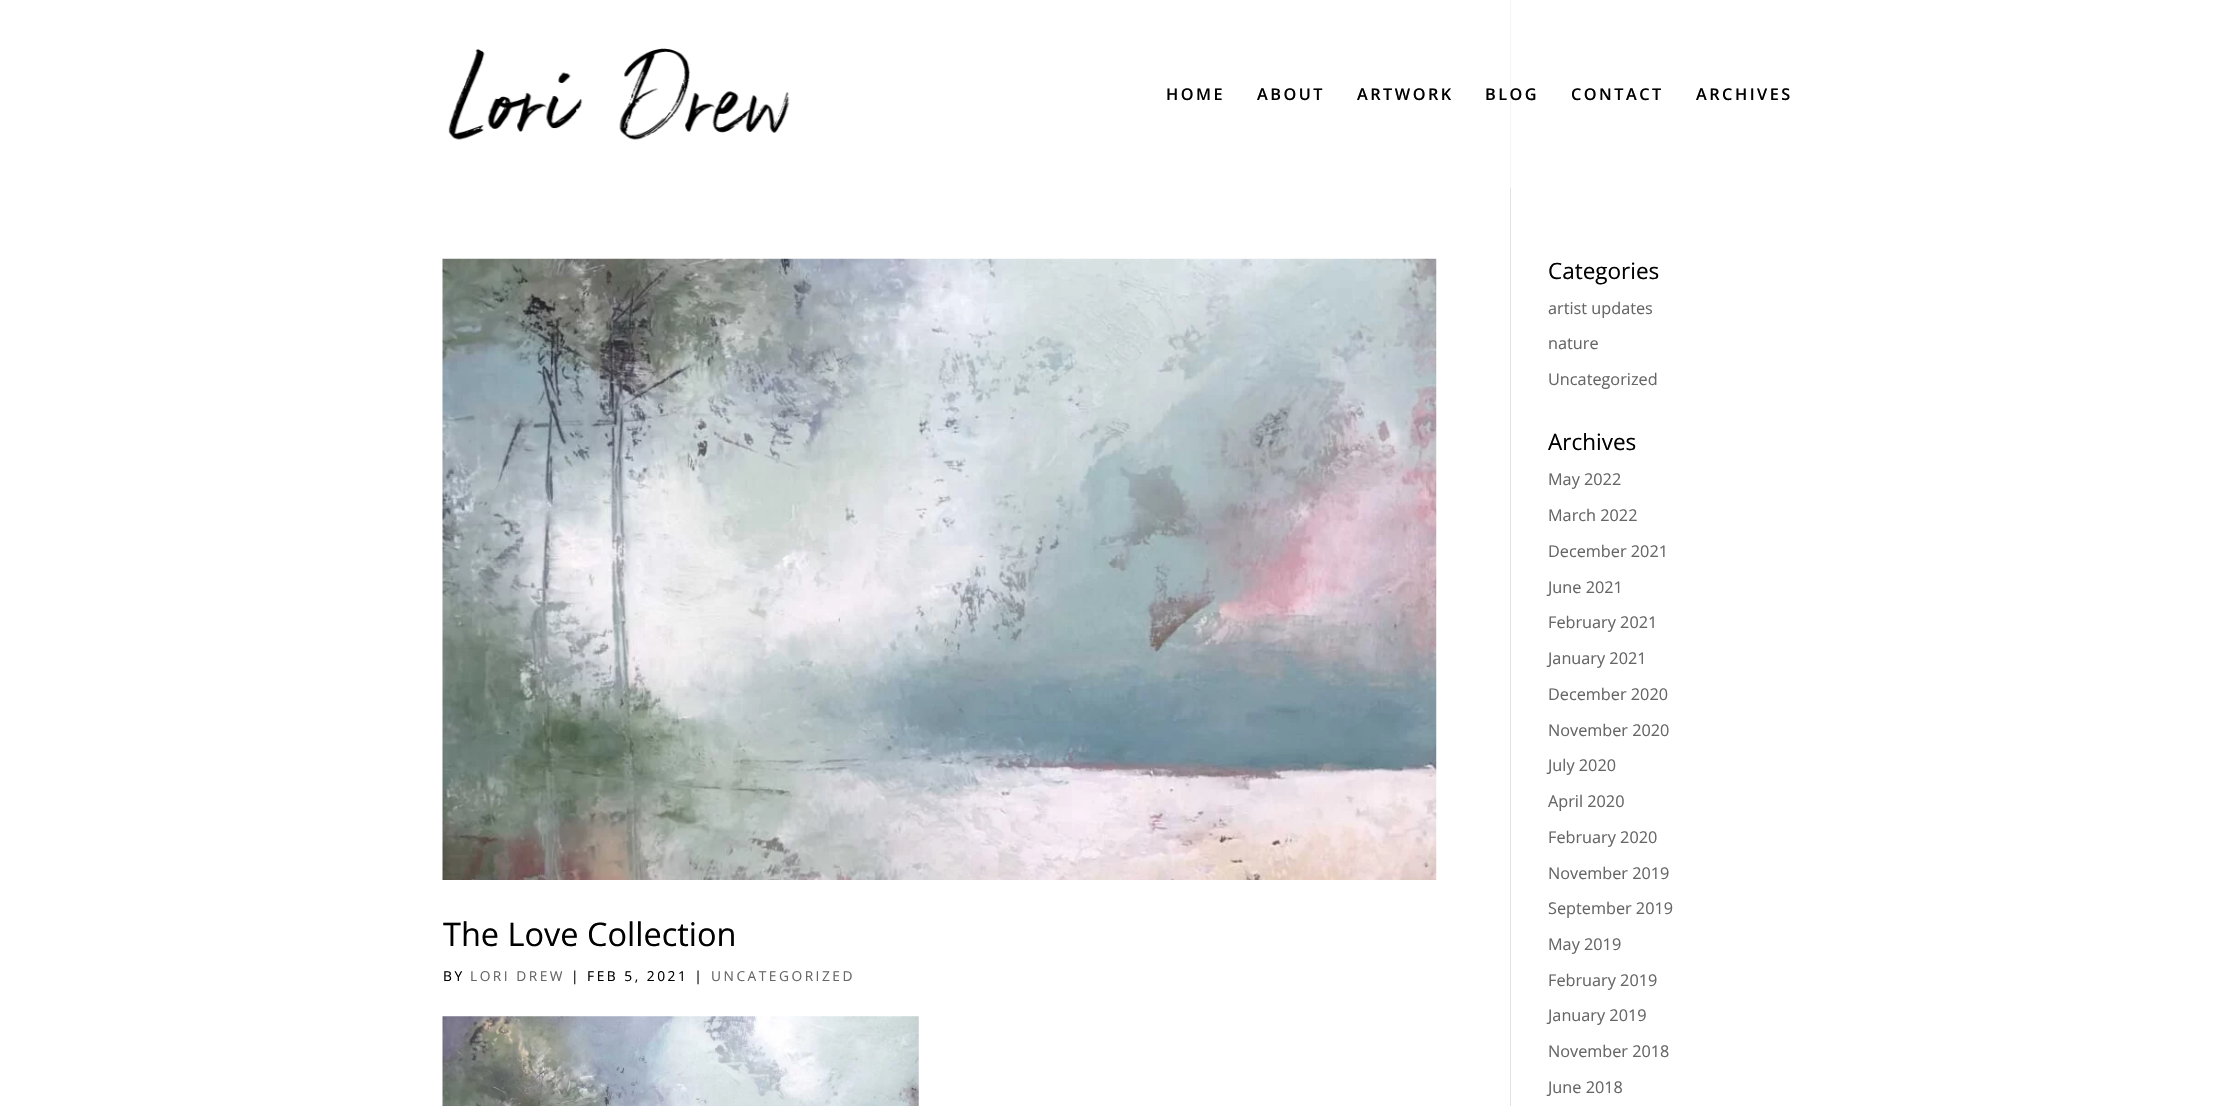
#include "include/core/SkBlurTypes.h"
#include "include/core/SkCanvas.h"
#include "include/core/SkData.h"
#include "include/core/SkFont.h"
#include "include/core/SkFontMgr.h"
#include "include/core/SkImage.h"
#include "include/core/SkMaskFilter.h"
#include "include/core/SkPaint.h"
#include "include/core/SkPathBuilder.h"
#include "include/core/SkTextBlob.h"
#include "include/effects/SkDashPathEffect.h"
#include "include/effects/SkGradientShader.h"
#include "include/utils/SkParsePath.h"

extern sk_sp<SkFontMgr> fontMgr;

void draw(SkCanvas* canvas) {
    SkPaint p;
    p.setAntiAlias(true);
    auto font = [&](const char* family, int weight, float size, bool italic = false) {
        SkFontStyle style(weight, SkFontStyle::kNormal_Width,
            italic ? SkFontStyle::kItalic_Slant : SkFontStyle::kUpright_Slant);
        SkFont result(fontMgr->matchFamilyStyle(family, style), size);
        result.setSubpixel(true);
        return result;
    };
    auto drawTracked = [&](const char* s, float x, float y, const SkFont& font, const SkPaint& ink, float letter, float word) {
        std::vector<SkGlyphID> glyphs(font.countText(s, strlen(s), SkTextEncoding::kUTF8));
        std::vector<float> xs(glyphs.size());
        font.textToGlyphs(s, strlen(s), SkTextEncoding::kUTF8, glyphs);
        font.getXPos(glyphs, xs, x);
        float extra = 0;
        for (size_t i = 0; i < glyphs.size(); i++) {
            xs[i] += extra;
            extra += letter + word * (glyphs[i] == font.unicharToGlyph(' '));
        }
        canvas->drawTextBlob(SkTextBlob::MakeFromPosHGlyphs(glyphs, xs, y, font), 0, 0, ink);
    };
    auto drawPhoto = [&](const char* path, float l, float t, float r, float b) {
        auto image = SkImages::DeferredFromEncodedData(SkData::MakeFromFileName(path));
        canvas->drawImageRect(image, SkRect::MakeLTRB(l, t, r, b), SkSamplingOptions());
    };
    canvas->clear(0xFFFFFFFF);
    drawPhoto("media/1.png", 448, 48, 790, 140);
    auto font1 = font("Open Sans", 600, 16.25f);
    p.setColor(0xFF000000);
    {
        const struct { const char* s; float x, y; } items[] = {
            {"HOME", 1166, 100},
            {"ABOUT", 1257, 100},
            {"ARTWORK", 1357, 100},
        };
        for (auto [s, x, y] : items) {
            drawTracked(s, x, y, font1, p, 2.5f, 0);
        }
    }
    p.setColor(0xFFF6F6F6);
    canvas->drawRect(SkRect::MakeLTRB(1510, 0, 1511, 188), p);
    p.setColor(0xFF000000);
    {
        const struct { const char* s; float x, y; } items[] = {
            {"BLOG", 1485, 100},
            {"CONTACT", 1571, 100},
            {"ARCHIVES", 1696, 100},
        };
        for (auto [s, x, y] : items) {
            drawTracked(s, x, y, font1, p, 2.5f, 0);
        }
    }
    p.setColor(0xFFE2E2E2);
    canvas->drawRect(SkRect::MakeLTRB(1510, 188, 1511, 1106), p);
    drawPhoto("media/2.png", 442, 258, 1437, 880);
    auto font2 = font("Open Sans", 400, 32.5f);
    p.setColor(0xFF000000);
    canvas->drawString("The Love Collection", 443, 946, font2, p);
    auto font3 = font("Open Sans", 400, 13.75f);
    drawTracked("BY", 443, 981, font3, p, 2.5f, 0);
    p.setColor(0xFF666666);
    drawTracked("LORI DREW", 470, 981, font3, p, 2.5f, 0);
    p.setColor(0xFF000000);
    drawTracked("| FEB 5, 2021 |", 571, 981, font3, p, 2.5f, 0);
    p.setColor(0xFF666666);
    drawTracked("UNCATEGORIZED", 711, 981, font3, p, 2.5f, 0);
    drawPhoto("media/3.png", 442, 1016, 919, 1106);
    auto font4 = font("Open Sans", 400, 22.5f);
    p.setColor(0xFF000000);
    canvas->drawString("Categories", 1548, 279, font4, p);
    auto font5 = font("Open Sans", 400, 16.25f);
    p.setColor(0xFF666666);
    {
        const struct { const char* s; float x, y; } items[] = {
            {"artist updates", 1548, 314},
            {"nature", 1548, 349},
            {"Uncategorized", 1548, 385},
        };
        for (auto [s, x, y] : items) {
            canvas->drawString(s, x, y, font5, p);
        }
    }
    p.setColor(0xFF000000);
    canvas->drawString("Archives", 1548, 450, font4, p);
    p.setColor(0xFF666666);
    {
        const struct { const char* s; float x, y; } items[] = {
            {"May 2022", 1548, 485},
            {"March 2022", 1548, 521},
            {"December 2021", 1548, 557},
            {"June 2021", 1548, 593},
            {"February 2021", 1548, 628},
            {"January 2021", 1548, 664},
            {"December 2020", 1548, 700},
            {"November 2020", 1548, 736},
            {"July 2020", 1548, 771},
            {"April 2020", 1548, 807},
            {"February 2020", 1548, 843},
            {"November 2019", 1548, 879},
            {"September 2019", 1548, 914},
            {"May 2019", 1548, 950},
            {"February 2019", 1548, 986},
            {"January 2019", 1548, 1021},
            {"November 2018", 1548, 1057},
            {"June 2018", 1548, 1093},
        };
        for (auto [s, x, y] : items) {
            canvas->drawString(s, x, y, font5, p);
        }
    }
}
